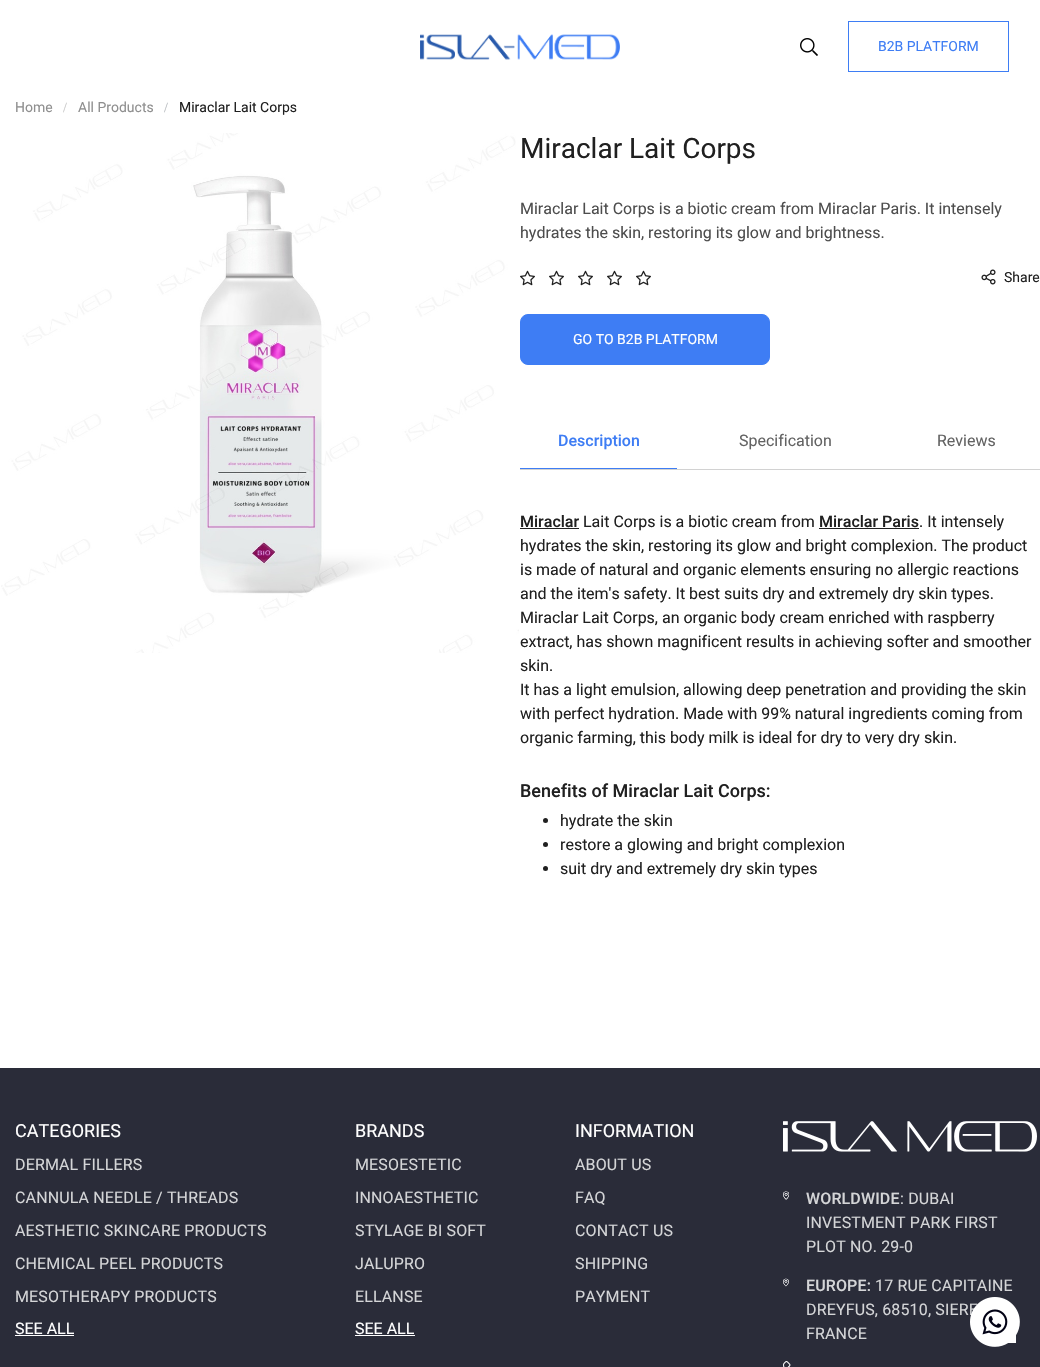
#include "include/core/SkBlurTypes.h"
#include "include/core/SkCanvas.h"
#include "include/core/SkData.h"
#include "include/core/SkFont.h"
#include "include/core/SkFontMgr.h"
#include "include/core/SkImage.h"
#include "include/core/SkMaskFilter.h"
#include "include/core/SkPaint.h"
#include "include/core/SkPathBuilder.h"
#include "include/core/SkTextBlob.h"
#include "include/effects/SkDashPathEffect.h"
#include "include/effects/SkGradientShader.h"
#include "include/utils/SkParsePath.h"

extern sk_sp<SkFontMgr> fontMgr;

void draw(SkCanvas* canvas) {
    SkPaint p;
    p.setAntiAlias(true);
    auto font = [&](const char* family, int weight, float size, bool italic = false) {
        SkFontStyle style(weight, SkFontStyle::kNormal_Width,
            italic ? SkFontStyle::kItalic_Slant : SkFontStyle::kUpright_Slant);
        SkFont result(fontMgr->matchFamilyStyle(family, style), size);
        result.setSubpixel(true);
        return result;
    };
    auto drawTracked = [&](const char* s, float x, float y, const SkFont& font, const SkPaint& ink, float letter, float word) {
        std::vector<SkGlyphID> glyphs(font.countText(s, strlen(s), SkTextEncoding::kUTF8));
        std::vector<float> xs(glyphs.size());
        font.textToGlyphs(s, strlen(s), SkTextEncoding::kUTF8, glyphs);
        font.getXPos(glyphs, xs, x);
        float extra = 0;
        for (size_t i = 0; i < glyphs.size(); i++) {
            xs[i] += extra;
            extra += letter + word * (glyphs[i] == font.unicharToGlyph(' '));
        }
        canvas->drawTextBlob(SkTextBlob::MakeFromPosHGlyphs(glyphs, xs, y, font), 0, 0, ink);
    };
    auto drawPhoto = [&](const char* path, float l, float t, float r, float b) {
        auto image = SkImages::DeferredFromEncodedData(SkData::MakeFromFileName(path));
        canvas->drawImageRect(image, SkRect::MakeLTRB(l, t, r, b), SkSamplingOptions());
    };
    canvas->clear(0xFFFFFFFF);
    drawPhoto("media/1.png", 420, 34, 620, 60);
    drawPhoto("media/2.png", 800, 38, 818, 56);
    p.setStyle(SkPaint::kStroke_Style);
    p.setStrokeWidth(1);
    p.setColor(0xFF3E7DF4);
    canvas->drawRect(SkRect::MakeLTRB(848.5f, 21.5f, 1008.5f, 71.5f), p);
    auto font1 = font("Roboto", 400, 14);
    p.setStyle(SkPaint::kFill_Style);
    canvas->drawString("B2B PLATFORM", 878, 51, font1, p);
    p.setColor(0xFF8F8F8F);
    canvas->drawString("Home", 15, 112, font1, p);
    auto font2 = font("Liberation Serif", 400, 14);
    p.setColor(0xFFC7C7C7);
    canvas->drawString("/", 63, 112, font2, p);
    p.setColor(0xFF8F8F8F);
    canvas->drawString("All Products", 78, 112, font1, p);
    p.setColor(0xFFB6BABE);
    canvas->drawString("/", 164, 112, font2, p);
    p.setColor(0xFF202020);
    canvas->drawString("Miraclar Lait Corps", 179, 112, font1, p);
    drawPhoto("media/3.png", 1, 133, 519, 653);
    auto font3 = font("Roboto", 400, 28);
    canvas->drawString("Miraclar Lait Corps", 520, 158, font3, p);
    auto font4 = font("Roboto", 400, 16);
    p.setColor(0xFF4D4D4D);
    canvas->drawString("Miraclar Lait Corps is a biotic cream from Miraclar Paris. It intensely", 520, 214, font4, p);
    canvas->drawString("hydrates the skin, restoring its glow and brightness.", 520, 238, font4, p);
    drawPhoto("media/4.png", 520, 270, 535, 286);
    drawPhoto("media/4.png", 549, 270, 564, 286);
    drawPhoto("media/4.png", 578, 270, 593, 286);
    drawPhoto("media/4.png", 607, 270, 622, 286);
    drawPhoto("media/4.png", 636, 270, 651, 286);
    drawPhoto("media/5.png", 981, 269, 996, 285);
    p.setColor(0xFF202020);
    canvas->drawString("Share", 1004, 282, font1, p);
    p.setColor(0xFF3E7DF4);
    canvas->drawRoundRect(SkRect::MakeLTRB(520.5f, 314.5f, 769.5f, 364.5f), 7.5f, 7.5f, p);
    p.setStyle(SkPaint::kStroke_Style);
    canvas->drawRoundRect(SkRect::MakeLTRB(520.5f, 314.5f, 769.5f, 364.5f), 7.5f, 7.5f, p);
    p.setStyle(SkPaint::kFill_Style);
    p.setColor(0xFFFFFFFF);
    canvas->drawString("GO TO B2B PLATFORM", 573, 344, font1, p);
    p.setColor(0xFFD2D2D2);
    canvas->drawRect(SkRect::MakeLTRB(520, 469, 1040, 470), p);
    p.setColor(0xFF3E7DF4);
    canvas->drawRect(SkRect::MakeLTRB(520, 468, 677, 469), p);
    auto font5 = font("Roboto", 500, 16);
    canvas->drawString("Description", 558, 446, font5, p);
    p.setColor(0xFF636363);
    canvas->drawString("Specification", 739, 446, font4, p);
    canvas->drawString("Reviews", 937, 446, font4, p);
    p.setColor(0xFF202020);
    canvas->drawString("Miraclar", 520, 527, font5, p);
    canvas->drawRect(SkRect::MakeLTRB(520, 528, 579, 529), p);
    canvas->drawString("Lait Corps is a biotic cream from", 583, 527, font4, p);
    canvas->drawString("Miraclar Paris", 819, 527, font5, p);
    canvas->drawRect(SkRect::MakeLTRB(819, 528, 919, 529), p);
    {
        const struct { const char* s; float x, y; } items[] = {
            {". It intensely", 919, 527},
            {"hydrates the skin, restoring its glow and bright complexion. The product", 520, 551},
            {"is made of natural and organic elements ensuring no allergic reactions", 520, 575},
            {"and the item's safety. It best suits dry and extremely dry skin types.", 520, 599},
            {"Miraclar Lait Corps, an organic body cream enriched with raspberry", 520, 623},
            {"extract, has shown magnificent results in achieving softer and smoother", 520, 647},
            {"skin.", 520, 671},
            {"It has a light emulsion, allowing deep penetration and providing the skin", 520, 695},
            {"with perfect hydration. Made with 99% natural ingredients coming from", 520, 719},
            {"organic farming, this body milk is ideal for dry to very dry skin.", 520, 743},
        };
        for (auto [s, x, y] : items) {
            canvas->drawString(s, x, y, font4, p);
        }
    }
    auto font6 = font("Roboto", 500, 18);
    canvas->drawString("Benefits of Miraclar Lait Corps:", 520, 797, font6, p);
    canvas->drawCircle(545.5f, 820.5f, 2.5f, p);
    canvas->drawString("hydrate the skin", 560, 826, font4, p);
    canvas->drawCircle(545.5f, 844.5f, 2.5f, p);
    canvas->drawString("restore a glowing and bright complexion", 560, 850, font4, p);
    canvas->drawCircle(545.5f, 868.5f, 2.5f, p);
    canvas->drawString("suit dry and extremely dry skin types", 560, 874, font4, p);
    p.setColor(0xFF2A2C39);
    canvas->drawRect(SkRect::MakeLTRB(0, 1068, 1040, 1367), p);
    auto font7 = font("Roboto", 400, 18);
    p.setColor(0xFFFFFFFF);
    canvas->drawString("CATEGORIES", 15, 1137, font7, p);
    p.setColor(0xFFD4D5D7);
    {
        const struct { const char* s; float x, y; } items[] = {
            {"DERMAL FILLERS", 15, 1170},
            {"CANNULA NEEDLE / THREADS", 15, 1203},
            {"AESTHETIC SKINCARE PRODUCTS", 15, 1236},
            {"CHEMICAL PEEL PRODUCTS", 15, 1269},
            {"MESOTHERAPY PRODUCTS", 15, 1302},
        };
        for (auto [s, x, y] : items) {
            drawTracked(s, x, y, font4, p, 0.15f, 0);
        }
    }
    p.setColor(0xFFFFFFFF);
    canvas->drawString("SEE ALL", 15, 1334, font4, p);
    canvas->drawRect(SkRect::MakeLTRB(15, 1335, 74, 1336), p);
    canvas->drawString("BRANDS", 355, 1137, font7, p);
    p.setColor(0xFFD4D5D7);
    {
        const struct { const char* s; float x, y; } items[] = {
            {"MESOESTETIC", 355, 1170},
            {"INNOAESTHETIC", 355, 1203},
            {"STYLAGE BI SOFT", 355, 1236},
            {"JALUPRO", 355, 1269},
            {"ELLANSE", 355, 1302},
        };
        for (auto [s, x, y] : items) {
            drawTracked(s, x, y, font4, p, 0.15f, 0);
        }
    }
    p.setColor(0xFFFFFFFF);
    canvas->drawString("SEE ALL", 355, 1334, font4, p);
    canvas->drawRect(SkRect::MakeLTRB(355, 1335, 415, 1336), p);
    canvas->drawString("INFORMATION", 575, 1137, font7, p);
    p.setColor(0xFFD4D5D7);
    {
        const struct { const char* s; float x, y; } items[] = {
            {"ABOUT US", 575, 1170},
            {"FAQ", 575, 1203},
            {"CONTACT US", 575, 1236},
            {"SHIPPING", 575, 1269},
            {"PAYMENT", 575, 1302},
        };
        for (auto [s, x, y] : items) {
            drawTracked(s, x, y, font4, p, 0.15f, 0);
        }
    }
    drawPhoto("media/6.png", 783, 1121, 1037, 1152);
    drawPhoto("media/7.png", 783, 1191, 789, 1200);
    drawTracked("WORLDWIDE", 806, 1204, font5, p, 0.15f, 0);
    {
        const struct { const char* s; float x, y; } items[] = {
            {": DUBAI", 900, 1204},
            {"INVESTMENT PARK FIRST", 806, 1228},
            {"PLOT NO. 29-0", 806, 1252},
        };
        for (auto [s, x, y] : items) {
            drawTracked(s, x, y, font4, p, 0.15f, 0);
        }
    }
    drawPhoto("media/8.png", 783, 1278, 789, 1287);
    drawTracked("EUROPE:", 806, 1291, font5, p, 0.15f, 0);
    {
        const struct { const char* s; float x, y; } items[] = {
            {"17 RUE CAPITAINE", 875, 1291},
            {"DREYFUS, 68510, SIERE", 806, 1315},
            {"FRANCE", 806, 1339},
        };
        for (auto [s, x, y] : items) {
            drawTracked(s, x, y, font4, p, 0.15f, 0);
        }
    }
    drawPhoto("media/9.png", 783, 1361, 791, 1367);
    drawPhoto("media/10.png", 970, 1297, 1020, 1347);
}
